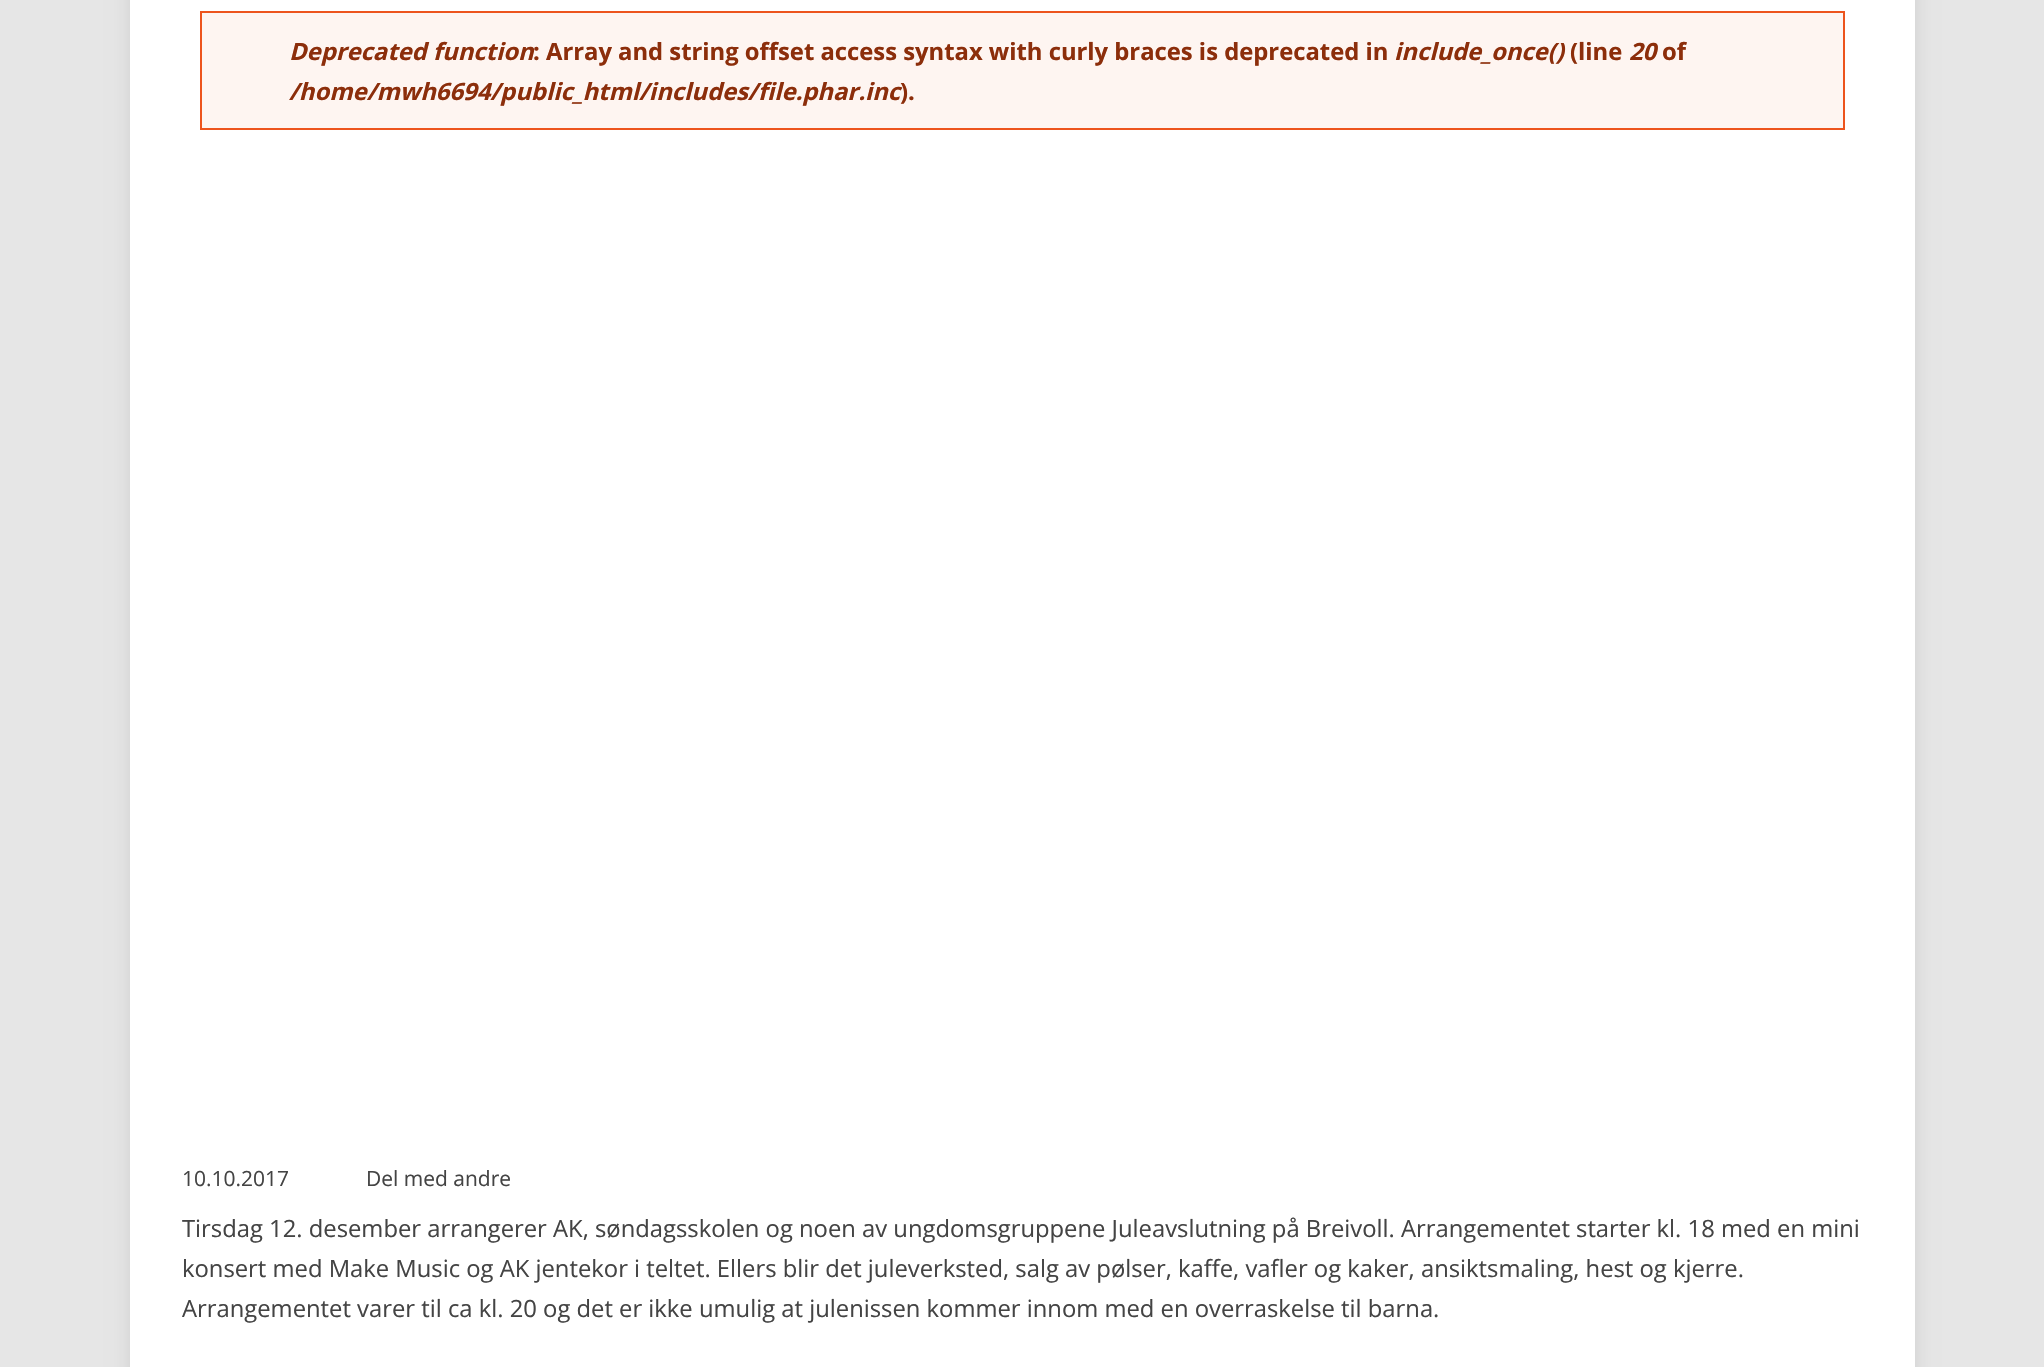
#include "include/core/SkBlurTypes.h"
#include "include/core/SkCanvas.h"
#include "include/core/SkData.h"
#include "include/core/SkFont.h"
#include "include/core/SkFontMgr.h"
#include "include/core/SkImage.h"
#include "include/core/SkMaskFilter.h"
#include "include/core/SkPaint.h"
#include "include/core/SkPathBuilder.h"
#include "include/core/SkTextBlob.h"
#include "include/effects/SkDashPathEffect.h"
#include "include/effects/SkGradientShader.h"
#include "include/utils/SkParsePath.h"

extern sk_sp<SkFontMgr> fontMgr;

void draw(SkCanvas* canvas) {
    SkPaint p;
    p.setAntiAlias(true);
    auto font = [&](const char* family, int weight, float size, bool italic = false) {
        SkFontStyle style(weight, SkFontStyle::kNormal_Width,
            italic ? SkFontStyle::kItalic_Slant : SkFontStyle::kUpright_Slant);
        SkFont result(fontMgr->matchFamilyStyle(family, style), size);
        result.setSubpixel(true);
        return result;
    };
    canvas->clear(0xFFE6E6E6);
    p.setColor(0x1A000000);
    p.setMaskFilter(SkMaskFilter::MakeBlur(kNormal_SkBlurStyle, 9));
    canvas->drawRect(SkRect::MakeLTRB(130, -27, 1915, 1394), p);
    p.setMaskFilter(nullptr);
    p.setColor(0xFFFFFFFF);
    canvas->drawRect(SkRect::MakeLTRB(130, 0, 1915, 1367), p);
    p.setColor(0xFFFEF5F1);
    canvas->drawRect(SkRect::MakeLTRB(201, 12, 1844, 129), p);
    p.setStyle(SkPaint::kStroke_Style);
    p.setStrokeWidth(2);
    p.setColor(0xFFED541D);
    canvas->drawRect(SkRect::MakeLTRB(201, 12, 1844, 129), p);
    auto font1 = font("Open Sans", 700, 23.8f, true);
    p.setStyle(SkPaint::kFill_Style);
    p.setColor(0xFF8C2E0B);
    canvas->drawString("Deprecated function", 289, 60, font1, p);
    auto font2 = font("Open Sans", 700, 23.8f);
    canvas->drawString(": Array and string offset access syntax with curly braces is deprecated in", 533, 60, font2, p);
    canvas->drawString("include_once()", 1394, 60, font1, p);
    canvas->drawString("(line", 1570, 60, font2, p);
    canvas->drawString("20", 1629, 60, font1, p);
    canvas->drawString("of", 1662, 60, font2, p);
    canvas->drawString("/home/mwh6694/public_html/includes/file.phar.inc", 289, 100, font1, p);
    canvas->drawString(").", 900, 100, font2, p);
    auto font3 = font("Open Sans", 400, 21);
    p.setColor(0xFF444444);
    canvas->drawString("10.10.2017", 182, 1186, font3, p);
    canvas->drawString("Del med andre", 366, 1186, font3, p);
    auto font4 = font("Open Sans", 400, 23.8f);
    {
        const struct { const char* s; float x, y; } items[] = {
            {"Tirsdag 12. desember arrangerer AK, søndagsskolen og noen av ungdomsgruppene Juleavslutning på Breivoll. Arrangementet starter kl. 18 med en mini", 182, 1237},
            {"konsert med Make Music og AK jentekor i teltet. Ellers blir det juleverksted, salg av pølser, kaffe, vafler og kaker, ansiktsmaling, hest og kjerre.", 182, 1277},
            {"Arrangementet varer til ca kl. 20 og det er ikke umulig at julenissen kommer innom med en overraskelse til barna.", 182, 1317},
        };
        for (auto [s, x, y] : items) {
            canvas->drawString(s, x, y, font4, p);
        }
    }
}
